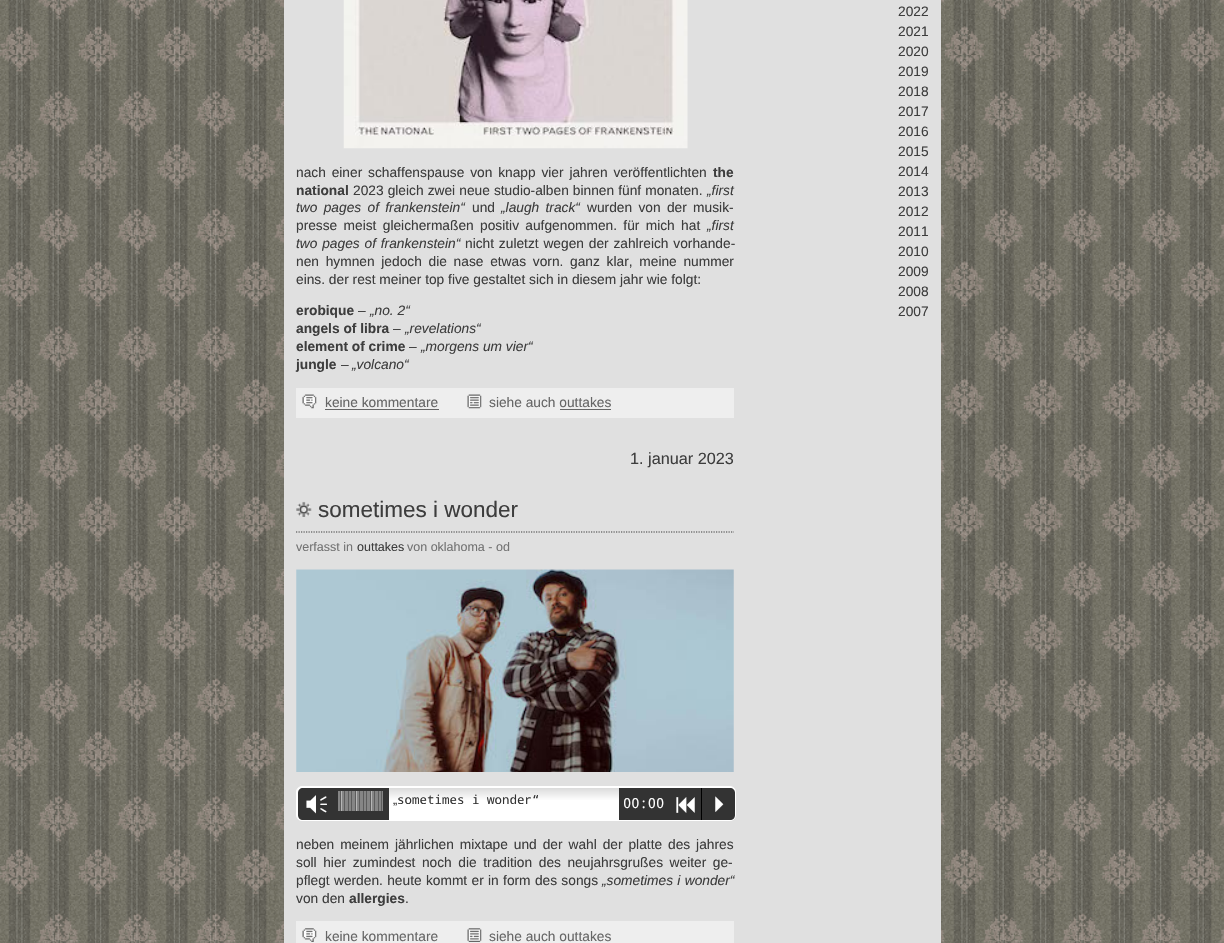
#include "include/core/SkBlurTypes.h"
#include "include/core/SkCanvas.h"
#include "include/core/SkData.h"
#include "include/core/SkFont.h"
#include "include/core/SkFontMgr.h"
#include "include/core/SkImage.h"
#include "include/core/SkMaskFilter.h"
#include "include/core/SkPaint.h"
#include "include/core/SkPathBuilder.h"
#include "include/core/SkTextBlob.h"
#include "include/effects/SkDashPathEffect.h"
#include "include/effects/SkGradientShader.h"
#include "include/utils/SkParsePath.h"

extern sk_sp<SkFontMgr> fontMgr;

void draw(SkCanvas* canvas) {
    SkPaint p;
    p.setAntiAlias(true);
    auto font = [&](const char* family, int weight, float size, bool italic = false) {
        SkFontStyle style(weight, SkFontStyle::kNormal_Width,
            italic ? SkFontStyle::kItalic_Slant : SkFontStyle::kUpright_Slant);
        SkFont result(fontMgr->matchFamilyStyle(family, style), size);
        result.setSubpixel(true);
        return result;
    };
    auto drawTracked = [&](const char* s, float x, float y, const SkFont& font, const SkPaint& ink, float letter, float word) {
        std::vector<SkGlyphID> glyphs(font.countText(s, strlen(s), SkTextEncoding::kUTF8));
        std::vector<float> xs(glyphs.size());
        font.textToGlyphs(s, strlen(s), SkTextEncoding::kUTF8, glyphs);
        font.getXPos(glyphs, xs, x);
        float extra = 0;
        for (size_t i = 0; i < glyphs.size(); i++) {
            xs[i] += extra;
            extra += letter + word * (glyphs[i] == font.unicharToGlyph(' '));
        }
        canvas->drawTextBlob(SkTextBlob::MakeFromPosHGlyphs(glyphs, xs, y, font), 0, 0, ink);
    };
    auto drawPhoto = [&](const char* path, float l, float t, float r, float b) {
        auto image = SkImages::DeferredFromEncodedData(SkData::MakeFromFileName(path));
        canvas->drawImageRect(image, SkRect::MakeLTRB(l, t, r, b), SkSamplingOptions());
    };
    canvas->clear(0xFFFFFFFF);
    drawPhoto("media/1.png", 0, 0, 1224, 943);
    p.setColor(0xFFE0E0E0);
    canvas->drawRect(SkRect::MakeLTRB(284, 0, 941, 943), p);
    drawPhoto("media/2.png", 343, 0, 688, 149);
    auto font1 = font("Liberation Sans", 400, 13.75f);
    p.setColor(0xFF3D3D3D);
    drawTracked("nach einer schaffenspause von knapp vier jahren veröffentlichten", 296, 177, font1, p, 0, 2);
    auto font2 = font("Liberation Sans", 700, 13.75f);
    canvas->drawString("the", 713, 177, font2, p);
    canvas->drawString("national", 296, 195, font2, p);
    drawTracked("2023 gleich zwei neue studio-alben binnen fünf monaten.", 353, 195, font1, p, 0, 0.25f);
    auto font3 = font("Liberation Sans", 400, 13.75f, true);
    canvas->drawString("„first", 707, 195, font3, p);
    drawTracked("two pages of frankenstein“", 296, 212, font3, p, 0, 2.5f);
    canvas->drawString("und", 472, 212, font1, p);
    drawTracked("„laugh track“", 501, 212, font3, p, 0, 2.5f);
    drawTracked("wurden von der musik-", 587, 212, font1, p, 0, 2.5f);
    drawTracked("presse meist gleichermaßen positiv aufgenommen. für mich hat", 296, 230, font1, p, 0, 2.5f);
    canvas->drawString("„first", 707, 230, font3, p);
    drawTracked("two pages of frankenstein“", 296, 248, font3, p, 0, 1);
    drawTracked("nicht zuletzt wegen der zahlreich vorhande-", 465, 248, font1, p, 0, 1);
    drawTracked("nen hymnen jedoch die nase etwas vorn. ganz klar, meine nummer", 296, 266, font1, p, 0, 2.9f);
    canvas->drawString("eins. der rest meiner top five gestaltet sich in diesem jahr wie folgt:", 296, 284, font1, p);
    canvas->drawString("erobique", 296, 315, font2, p);
    canvas->drawString("–", 358, 315, font1, p);
    canvas->drawString("„no. 2“", 370, 315, font3, p);
    canvas->drawString("angels of libra", 296, 333, font2, p);
    canvas->drawString("–", 393, 333, font1, p);
    canvas->drawString("„revelations“", 405, 333, font3, p);
    canvas->drawString("element of crime", 296, 351, font2, p);
    canvas->drawString("–", 409, 351, font1, p);
    canvas->drawString("„morgens um vier“", 421, 351, font3, p);
    canvas->drawString("jungle", 296, 369, font2, p);
    canvas->drawString("–", 341, 369, font1, p);
    canvas->drawString("„volcano“", 352, 369, font3, p);
    p.setColor(0xFFEEEEEE);
    canvas->drawRect(SkRect::MakeLTRB(296, 388, 734, 418), p);
    drawPhoto("media/3.png", 302, 394, 317, 409);
    p.setColor(0xFF666666);
    canvas->drawString("keine kommentare", 325, 407, font1, p);
    canvas->drawRect(SkRect::MakeLTRB(325, 409, 439, 410), p);
    drawPhoto("media/4.png", 467, 394, 482, 409);
    canvas->drawString("siehe auch outtakes", 489, 407, font1, p);
    canvas->drawRect(SkRect::MakeLTRB(560, 409, 611, 410), p);
    auto font4 = font("Liberation Sans", 400, 16.25f);
    p.setColor(0xFF3D3D3D);
    canvas->drawString("1. januar 2023", 630, 464, font4, p);
    drawPhoto("media/5.png", 296, 501, 312, 517);
    auto font5 = font("Liberation Sans", 400, 22.5f);
    canvas->drawString("sometimes i wonder", 318, 517, font5, p);
    p.setStyle(SkPaint::kStroke_Style);
    p.setStrokeWidth(1.2f);
    p.setPathEffect(SkDashPathEffect::Make({{1.25f, 1.25f}}, 0));
    canvas->drawPath(SkPathBuilder().moveTo(296, 532).lineTo(734, 532).detach(), p);
    p.setPathEffect(nullptr);
    auto font6 = font("Liberation Sans", 400, 12.5f);
    p.setStyle(SkPaint::kFill_Style);
    p.setColor(0xFF737373);
    canvas->drawString("verfasst in", 296, 551, font6, p);
    p.setColor(0xFF3D3D3D);
    canvas->drawString("outtakes", 357, 551, font6, p);
    p.setColor(0xFF737373);
    canvas->drawString("von oklahoma - od", 407, 551, font6, p);
    drawPhoto("media/6.png", 296, 569, 734, 772);
    p.setColor(0xFFFFFFFF);
    canvas->drawRoundRect(SkRect::MakeLTRB(296.5f, 786.5f, 735.5f, 820.5f), 5.5f, 5.5f, p);
    p.setStyle(SkPaint::kStroke_Style);
    p.setStrokeWidth(1);
    canvas->drawRoundRect(SkRect::MakeLTRB(296.5f, 786.5f, 735.5f, 820.5f), 5.5f, 5.5f, p);
    p.setStyle(SkPaint::kFill_Style);
    p.setColor(0xFF333333);
    canvas->drawPath(SkPathBuilder().moveTo(303, 788).lineTo(331, 788).lineTo(331, 820).lineTo(303, 820).cubicTo(300, 820, 298, 818, 298, 815).lineTo(298, 793).cubicTo(298, 790, 300, 788, 303, 788).close().detach(), p);
    auto font7 = font("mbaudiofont", 400, 25);
    p.setColor(0xFFFFFFFF);
    canvas->drawString("Vm", 305, 812, font7, p);
    {
        const struct { float l, t, r, b; SkColor color; } items[] = {
            {331, 788, 389, 820, 0xFF333333},
            {338, 791, 342, 811, 0xFF858585},
            {340, 791, 341, 811, 0xFF5C5C5C},
            {341, 791, 344, 811, 0x66FFFFFF},
            {344, 791, 345, 811, 0xFF5C5C5C},
            {345, 791, 348, 811, 0xFF858585},
            {348, 791, 349, 811, 0xFF5C5C5C},
            {349, 791, 357, 811, 0xFF858585},
            {351, 791, 352, 811, 0xFF5C5C5C},
            {355, 791, 356, 811, 0xFF5C5C5C},
            {356, 791, 359, 811, 0x66FFFFFF},
            {359, 791, 360, 811, 0xFF5C5C5C},
            {360, 791, 363, 811, 0xFF858585},
            {363, 791, 364, 811, 0xFF5C5C5C},
            {364, 791, 372, 811, 0xFF858585},
            {366, 791, 367, 811, 0xFF5C5C5C},
            {370, 791, 371, 811, 0xFF5C5C5C},
            {371, 791, 374, 811, 0x66FFFFFF},
            {374, 791, 375, 811, 0xFF5C5C5C},
            {375, 791, 378, 811, 0xFF858585},
            {378, 791, 379, 811, 0xFF5C5C5C},
            {379, 791, 383, 811, 0xFF858585},
            {381, 791, 382, 811, 0xFF5C5C5C},
        };
        for (auto [l, t, r, b, color] : items) {
            p.setColor(color);
            canvas->drawRect(SkRect::MakeLTRB(l, t, r, b), p);
        }
    }
    {
        const SkColor colors[] = {0xFFFFFFFF, 0xFFFFFFFF, 0xFFDBDBDB};
        const float stops[] = {0, 0.6f, 1};
        const SkPoint ends[] = {{504, 820}, {504, 788}};
        p.setShader(SkGradientShader::MakeLinear(ends, colors, stops, 3, SkTileMode::kClamp));
        p.setAlpha(255);
    }
    canvas->drawRect(SkRect::MakeLTRB(389, 788, 619, 800), p);
    p.setShader(nullptr);
    p.setColor(0xFF333333);
    canvas->drawString("„", 393, 804, font6, p);
    auto font8 = font("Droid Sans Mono", 400, 12.5f);
    canvas->drawString("sometimes i wonder“", 397, 804, font8, p);
    canvas->drawRect(SkRect::MakeLTRB(619, 788, 701, 820), p);
    auto font9 = font("Droid Sans Mono", 400, 13.75f);
    p.setColor(0xFFFFFFFF);
    canvas->drawString("00:00", 623, 808, font9, p);
    canvas->drawString("R", 673, 812, font7, p);
    p.setColor(0xFF333333);
    canvas->drawPath(SkPathBuilder().moveTo(701, 788).lineTo(730, 788).cubicTo(733, 788, 735, 790, 735, 793).lineTo(735, 815).cubicTo(735, 818, 733, 820, 730, 820).lineTo(701, 820).close().detach(), p);
    p.setColor(0xFF000000);
    canvas->drawRect(SkRect::MakeLTRB(701, 788, 702, 820), p);
    p.setColor(0xFFFFFFFF);
    canvas->drawString("P", 706, 812, font7, p);
    p.setColor(0xFF3D3D3D);
    drawTracked("neben meinem jährlichen mixtape und der wahl der platte des jahres", 296, 849, font1, p, 0, 2.1f);
    drawTracked("soll hier zumindest noch die tradition des neujahrsgrußes weiter ge-", 296, 867, font1, p, 0, 2.75f);
    drawTracked("pflegt werden. heute kommt er in form des songs", 296, 885, font1, p, 0, 0.5f);
    drawTracked("„sometimes i wonder“", 602, 885, font3, p, 0, 0.5f);
    canvas->drawString("von den", 296, 903, font1, p);
    canvas->drawString("allergies", 349, 903, font2, p);
    canvas->drawString(".", 405, 903, font1, p);
    p.setColor(0xFFEEEEEE);
    canvas->drawRect(SkRect::MakeLTRB(296, 921, 734, 943), p);
    drawPhoto("media/7.png", 302, 928, 317, 942);
    p.setColor(0xFF666666);
    canvas->drawString("keine kommentare", 325, 941, font1, p);
    drawPhoto("media/8.png", 467, 928, 482, 942);
    canvas->drawString("siehe auch outtakes", 489, 941, font1, p);
    p.setColor(0xFF3D3D3D);
    {
        const struct { const char* s; float x, y; } items[] = {
            {"2022", 898, 16},
            {"2021", 898, 36},
            {"2020", 898, 56},
            {"2019", 898, 76},
            {"2018", 898, 96},
            {"2017", 898, 116},
            {"2016", 898, 136},
            {"2015", 898, 156},
            {"2014", 898, 176},
            {"2013", 898, 196},
            {"2012", 898, 216},
            {"2011", 898, 236},
            {"2010", 898, 256},
            {"2009", 898, 276},
            {"2008", 898, 296},
            {"2007", 898, 316},
        };
        for (auto [s, x, y] : items) {
            canvas->drawString(s, x, y, font1, p);
        }
    }
}
